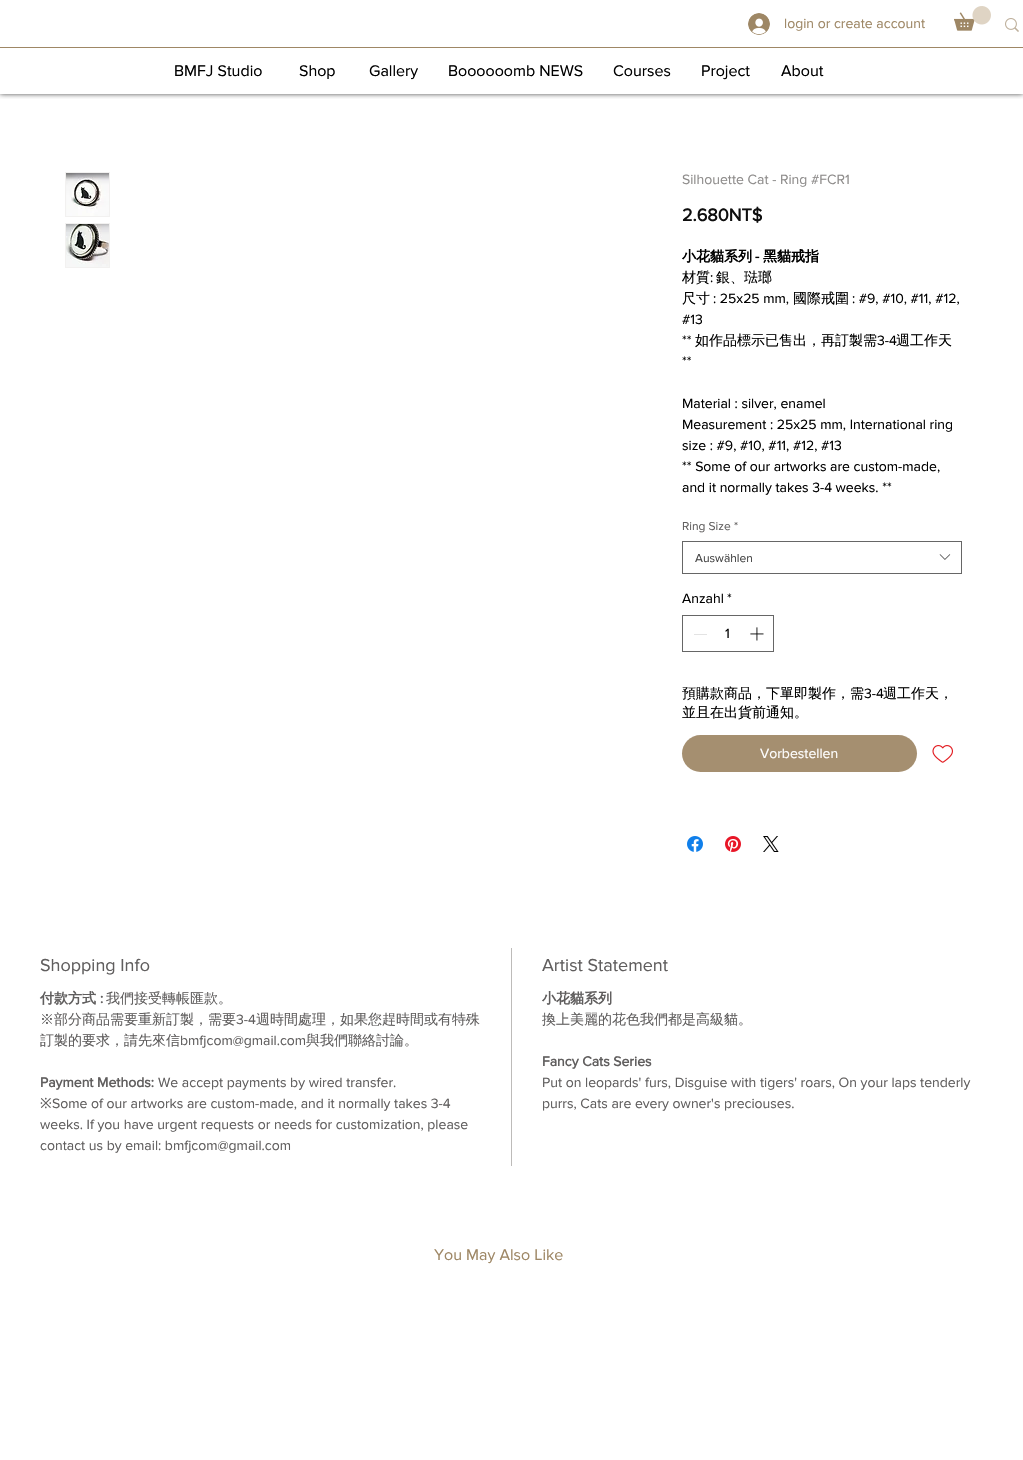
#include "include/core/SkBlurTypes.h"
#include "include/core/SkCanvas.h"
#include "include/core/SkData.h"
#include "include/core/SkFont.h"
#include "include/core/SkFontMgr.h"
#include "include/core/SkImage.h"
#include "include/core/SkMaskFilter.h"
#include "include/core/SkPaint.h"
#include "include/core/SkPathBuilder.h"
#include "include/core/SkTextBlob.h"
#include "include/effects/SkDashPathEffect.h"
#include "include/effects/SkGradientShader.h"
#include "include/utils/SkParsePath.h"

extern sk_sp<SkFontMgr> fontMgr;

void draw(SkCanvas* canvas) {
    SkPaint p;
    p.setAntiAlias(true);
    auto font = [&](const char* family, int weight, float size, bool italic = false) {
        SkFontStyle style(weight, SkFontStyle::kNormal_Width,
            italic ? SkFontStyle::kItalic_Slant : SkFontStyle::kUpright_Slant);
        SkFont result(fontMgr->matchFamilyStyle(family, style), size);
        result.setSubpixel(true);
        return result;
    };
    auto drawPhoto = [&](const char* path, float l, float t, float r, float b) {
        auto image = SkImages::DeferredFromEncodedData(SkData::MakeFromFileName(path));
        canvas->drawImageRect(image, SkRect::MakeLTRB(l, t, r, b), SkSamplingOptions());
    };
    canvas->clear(0xFFFFFFFF);
    canvas->save();
    canvas->clipRect(SkRect::MakeLTRB(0, 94, 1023, 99));
    p.setColor(0xB3000000);
    p.setMaskFilter(SkMaskFilter::MakeBlur(kNormal_SkBlurStyle, 2.5f));
    canvas->drawRect(SkRect::MakeLTRB(0, 0, 1023, 94), p);
    p.setMaskFilter(nullptr);
    canvas->restore();
    drawPhoto("media/1.png", 748, 13, 770, 35);
    auto font1 = font("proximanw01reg", 400, 14);
    p.setColor(0xFF9E8765);
    canvas->drawString("login or create account", 784, 28, font1, p);
    drawPhoto("media/2.png", 954, 6, 991, 31);
    drawPhoto("media/3.png", 1005, 18, 1019, 32);
    canvas->drawRect(SkRect::MakeLTRB(0, 47, 1023, 48), p);
    auto font2 = font("proximanw01reg", 400, 16);
    p.setColor(0xFF000000);
    {
        const struct { const char* s; float x, y; } items[] = {
            {"BMFJ Studio", 174, 76},
            {"Shop", 299, 76},
            {"Gallery", 369, 76},
            {"Boooooomb NEWS", 448, 76},
            {"Courses", 613, 76},
            {"Project", 701, 76},
            {"About", 781, 76},
        };
        for (auto [s, x, y] : items) {
            canvas->drawString(s, x, y, font2, p);
        }
    }
    p.setColor(0xFFF2F1F0);
    canvas->drawRect(SkRect::MakeLTRB(65, 172, 110, 217), p);
    drawPhoto("media/4.png", 66, 173, 109, 216);
    canvas->drawRect(SkRect::MakeLTRB(65, 223, 110, 268), p);
    drawPhoto("media/5.png", 66, 224, 109, 267);
    p.setColor(0xFF8E8C8B);
    canvas->drawString("Silhouette Cat - Ring #FCR1", 682, 184, font1, p);
    auto font3 = font("proximanw01reg", 700, 18);
    p.setColor(0xFF0F0F0F);
    canvas->drawString("2.680NT$", 682, 221, font3, p);
    auto font4 = font("WenQuanYi Zen Hei", 700, 14);
    p.setColor(0xFF000000);
    canvas->drawString("小花貓系列", 682, 261, font4, p);
    auto font5 = font("proximanw01reg", 700, 14);
    canvas->drawString("-", 755, 261, font5, p);
    canvas->drawString("黑貓戒指", 763, 261, font4, p);
    auto font6 = font("WenQuanYi Zen Hei", 500, 14);
    canvas->drawString("材質", 682, 282, font6, p);
    canvas->drawString(":", 710, 282, font1, p);
    canvas->drawString("銀、琺瑯", 716, 282, font6, p);
    canvas->drawString("尺寸", 682, 303, font6, p);
    canvas->drawString(": 25x25 mm,", 713, 303, font1, p);
    canvas->drawString("國際戒圍", 793, 303, font6, p);
    {
        const struct { const char* s; float x, y; } items[] = {
            {": #9, #10, #11, #12,", 852, 303},
            {"#13", 682, 324},
            {"**", 682, 345},
        };
        for (auto [s, x, y] : items) {
            canvas->drawString(s, x, y, font1, p);
        }
    }
    canvas->drawString("如作品標示已售出，再訂製需", 695, 345, font6, p);
    canvas->drawString("3-4", 877, 345, font1, p);
    canvas->drawString("週工作天", 896, 345, font6, p);
    {
        const struct { const char* s; float x, y; } items[] = {
            {"**", 682, 366},
            {"Material : silver, enamel", 682, 408},
            {"Measurement : 25x25 mm, International ring", 682, 429},
            {"size : #9, #10, #11, #12, #13", 682, 450},
            {"** Some of our artworks are custom-made,", 682, 471},
            {"and it normally takes 3-4 weeks. **", 682, 492},
        };
        for (auto [s, x, y] : items) {
            canvas->drawString(s, x, y, font1, p);
        }
    }
    auto font7 = font("proximanw01reg", 400, 12);
    p.setColor(0xFF605E5E);
    canvas->drawString("Ring Size", 682, 530, font7, p);
    canvas->drawString("*", 734, 530, font7, p);
    p.setStyle(SkPaint::kStroke_Style);
    p.setStrokeWidth(1);
    p.setColor(0xFF666666);
    canvas->drawRect(SkRect::MakeLTRB(682.5f, 541.5f, 961.5f, 573.5f), p);
    p.setStyle(SkPaint::kFill_Style);
    p.setColor(0xFF444444);
    canvas->drawString("Auswählen", 695, 562, font7, p);
    drawPhoto("media/6.png", 939, 554, 951, 560);
    p.setColor(0xFF000000);
    canvas->drawString("Anzahl", 682, 603, font1, p);
    canvas->drawString("*", 727, 603, font1, p);
    p.setStyle(SkPaint::kStroke_Style);
    p.setColor(0xFF666666);
    canvas->drawRect(SkRect::MakeLTRB(682.5f, 615.5f, 773.5f, 651.5f), p);
    p.setStyle(SkPaint::kFill_Style);
    p.setColor(0xFFE3E3E3);
    canvas->drawRect(SkRect::MakeLTRB(694, 634, 707, 635), p);
    p.setColor(0xFF000000);
    canvas->drawString("1", 725, 638, font1, p);
    drawPhoto("media/7.png", 750, 627, 764, 641);
    canvas->drawString("預購款商品，下單即製作，需", 682, 698, font6, p);
    canvas->drawString("3-4", 864, 698, font1, p);
    canvas->drawString("週工作天，", 883, 698, font6, p);
    canvas->drawString("並且在出貨前通知。", 682, 717, font6, p);
    p.setColor(0xFFA58F70);
    canvas->drawRoundRect(SkRect::MakeLTRB(682, 735, 917, 772), 18.5f, 18.5f, p);
    p.setColor(0xFFFFFFFF);
    canvas->drawString("Vorbestellen", 760, 758, font1, p);
    drawPhoto("media/8.png", 932, 745, 953, 763);
    drawPhoto("media/9.png", 687, 836, 703, 852);
    drawPhoto("media/10.png", 725, 836, 741, 852);
    drawPhoto("media/11.png", 763, 836, 779, 852);
    p.setColor(0xFFBDBBB9);
    canvas->drawRect(SkRect::MakeLTRB(511, 948, 512, 1166), p);
    auto font8 = font("proximanw01reg", 400, 18);
    p.setColor(0xFF605E5E);
    canvas->drawString("Shopping Info", 40, 971, font8, p);
    canvas->drawString("付款方式", 40, 1003, font4, p);
    canvas->drawString(":", 100, 1003, font5, p);
    canvas->drawString("我們接受轉帳匯款。", 106, 1003, font6, p);
    canvas->drawString("※部分商品需要重新訂製，需要", 40, 1024, font6, p);
    canvas->drawString("3-4", 236, 1024, font1, p);
    canvas->drawString("週時間處理，如果您趕時間或有特殊", 256, 1024, font6, p);
    canvas->drawString("訂製的要求，請先來信", 40, 1045, font6, p);
    canvas->drawString("bmfjcom@gmail.com", 180, 1045, font1, p);
    canvas->drawString("與我們聯絡討論。", 306, 1045, font6, p);
    canvas->drawString("Payment Methods:", 40, 1087, font5, p);
    canvas->drawString("We accept payments by wired transfer.", 158, 1087, font1, p);
    auto font9 = font("Noto Sans", 400, 14);
    canvas->drawString("※", 40, 1108, font9, p);
    {
        const struct { const char* s; float x, y; } items[] = {
            {"Some of our artworks are custom-made, and it normally takes 3-4", 52, 1108},
            {"weeks. If you have urgent requests or needs for customization, please", 40, 1129},
            {"contact us by email: bmfjcom@gmail.com", 40, 1150},
        };
        for (auto [s, x, y] : items) {
            canvas->drawString(s, x, y, font1, p);
        }
    }
    canvas->drawString("Artist Statement", 542, 971, font8, p);
    canvas->drawString("小花貓系列", 542, 1003, font4, p);
    canvas->drawString("換上美麗的花色我們都是高級貓。", 542, 1024, font6, p);
    canvas->drawString("Fancy Cats Series", 542, 1066, font5, p);
    canvas->drawString("Put on leopards' furs, Disguise with tigers' roars, On your laps tenderly", 542, 1087, font1, p);
    canvas->drawString("purrs, Cats are every owner's preciouses.", 542, 1108, font1, p);
    p.setColor(0xFF9E8765);
    canvas->drawString("You May Also Like", 434, 1260, font2, p);
}
